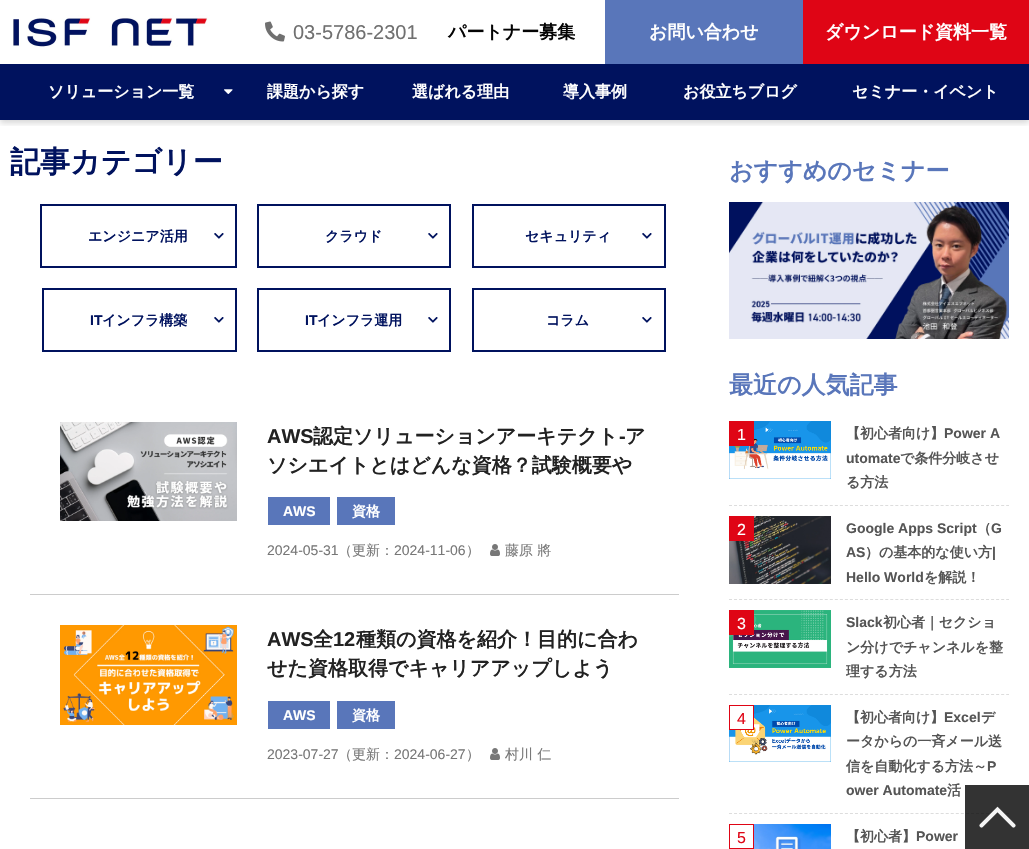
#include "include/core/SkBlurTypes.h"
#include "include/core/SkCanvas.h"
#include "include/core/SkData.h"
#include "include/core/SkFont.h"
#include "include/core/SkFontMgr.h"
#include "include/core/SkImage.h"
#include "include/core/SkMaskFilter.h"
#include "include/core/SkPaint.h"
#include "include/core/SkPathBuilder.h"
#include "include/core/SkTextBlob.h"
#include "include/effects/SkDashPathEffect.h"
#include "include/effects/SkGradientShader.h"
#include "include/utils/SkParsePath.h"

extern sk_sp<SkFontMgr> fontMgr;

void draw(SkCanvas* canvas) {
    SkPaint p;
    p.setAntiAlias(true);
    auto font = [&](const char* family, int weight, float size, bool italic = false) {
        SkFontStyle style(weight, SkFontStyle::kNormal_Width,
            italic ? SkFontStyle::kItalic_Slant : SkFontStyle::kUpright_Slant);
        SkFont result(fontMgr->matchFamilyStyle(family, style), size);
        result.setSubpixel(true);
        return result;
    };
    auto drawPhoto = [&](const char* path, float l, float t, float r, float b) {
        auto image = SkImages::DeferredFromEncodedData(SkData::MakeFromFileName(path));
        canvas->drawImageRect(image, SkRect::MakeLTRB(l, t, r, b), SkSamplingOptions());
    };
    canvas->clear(0xFFFFFFFF);
    canvas->save();
    canvas->clipRect(SkRect::MakeLTRB(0, 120, 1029, 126));
    p.setColor(0x29000000);
    p.setMaskFilter(SkMaskFilter::MakeBlur(kNormal_SkBlurStyle, 3));
    canvas->drawRect(SkRect::MakeLTRB(0, 3, 1029, 123), p);
    p.setMaskFilter(nullptr);
    canvas->restore();
    drawPhoto("media/1.png", 13, 15, 210, 47);
    drawPhoto("media/2.png", 265, 21, 285, 42);
    auto font1 = font("Liberation Sans", 400, 20);
    p.setColor(0xFF707070);
    canvas->drawString("03-5786-2301", 293, 39, font1, p);
    auto font2 = font("WenQuanYi Zen Hei", 700, 18);
    p.setColor(0xFF040404);
    canvas->drawString("パートナー募集", 448, 38, font2, p);
    p.setStyle(SkPaint::kStroke_Style);
    p.setStrokeWidth(2);
    p.setColor(0xFF5976BA);
    canvas->drawRect(SkRect::MakeLTRB(606, 1, 802, 63), p);
    p.setStyle(SkPaint::kFill_Style);
    canvas->drawRect(SkRect::MakeLTRB(607, 2, 801, 62), p);
    p.setColor(0xFFFFFFFF);
    canvas->drawString("お問い合わせ", 649, 38, font2, p);
    p.setColor(0xFFDF0515);
    canvas->drawRect(SkRect::MakeLTRB(803, 0, 1029, 64), p);
    p.setColor(0xFFFFFFFF);
    canvas->drawString("ダウンロード資料一覧", 825, 38, font2, p);
    p.setColor(0xFF00125E);
    canvas->drawRect(SkRect::MakeLTRB(0, 64, 1029, 120), p);
    auto font3 = font("WenQuanYi Zen Hei", 700, 16);
    p.setColor(0xFFFFFFFF);
    canvas->drawString("ソリューション一覧", 48, 97, font3, p);
    drawPhoto("media/3.png", 224, 89, 233, 94);
    {
        const struct { const char* s; float x, y; } items[] = {
            {"課題から探す", 267, 97},
            {"選ばれる理由", 412, 97},
            {"導入事例", 563, 97},
            {"お役立ちブログ", 683, 97},
            {"セミナー・イベント", 852, 97},
        };
        for (auto [s, x, y] : items) {
            canvas->drawString(s, x, y, font3, p);
        }
    }
    auto font4 = font("WenQuanYi Zen Hei", 700, 30);
    p.setColor(0xFF00125E);
    canvas->drawString("記事カテゴリー", 10, 172, font4, p);
    p.setStyle(SkPaint::kStroke_Style);
    canvas->drawRect(SkRect::MakeLTRB(41, 205, 236, 267), p);
    auto font5 = font("WenQuanYi Zen Hei", 700, 14);
    p.setStyle(SkPaint::kFill_Style);
    canvas->drawString("エンジニア活用", 88, 241, font5, p);
    drawPhoto("media/4.png", 214, 233, 224, 239);
    p.setStyle(SkPaint::kStroke_Style);
    canvas->drawRect(SkRect::MakeLTRB(258, 205, 450, 267), p);
    p.setStyle(SkPaint::kFill_Style);
    canvas->drawString("クラウド", 325, 241, font5, p);
    drawPhoto("media/4.png", 428, 233, 438, 239);
    p.setStyle(SkPaint::kStroke_Style);
    canvas->drawRect(SkRect::MakeLTRB(473, 205, 665, 267), p);
    p.setStyle(SkPaint::kFill_Style);
    canvas->drawString("セキュリティ", 525, 241, font5, p);
    drawPhoto("media/4.png", 642, 233, 652, 239);
    p.setStyle(SkPaint::kStroke_Style);
    canvas->drawRect(SkRect::MakeLTRB(43, 289, 236, 351), p);
    auto font6 = font("Liberation Sans", 700, 14);
    p.setStyle(SkPaint::kFill_Style);
    canvas->drawString("IT", 90, 325, font6, p);
    canvas->drawString("インフラ構築", 102, 325, font5, p);
    drawPhoto("media/4.png", 214, 317, 224, 323);
    p.setStyle(SkPaint::kStroke_Style);
    canvas->drawRect(SkRect::MakeLTRB(258, 289, 450, 351), p);
    p.setStyle(SkPaint::kFill_Style);
    canvas->drawString("IT", 305, 325, font6, p);
    canvas->drawString("インフラ運用", 317, 325, font5, p);
    drawPhoto("media/4.png", 428, 317, 438, 323);
    p.setStyle(SkPaint::kStroke_Style);
    canvas->drawRect(SkRect::MakeLTRB(473, 289, 665, 351), p);
    p.setStyle(SkPaint::kFill_Style);
    canvas->drawString("コラム", 546, 325, font5, p);
    drawPhoto("media/4.png", 642, 317, 652, 323);
    p.setColor(0xFFCCCCCC);
    canvas->drawRect(SkRect::MakeLTRB(30, 594, 679, 595), p);
    drawPhoto("media/5.png", 60, 422, 237, 521);
    auto font7 = font("Liberation Sans", 700, 20);
    p.setColor(0xFF222222);
    canvas->drawString("AWS", 267, 443, font7, p);
    auto font8 = font("WenQuanYi Zen Hei", 700, 20);
    canvas->drawString("認定ソリューションアーキテクト", 313, 443, font8, p);
    canvas->drawString("-", 619, 443, font7, p);
    canvas->drawString("ア", 625, 443, font8, p);
    canvas->drawString("ソシエイトとはどんな資格？試験概要や", 267, 472, font8, p);
    p.setColor(0xFF5976BA);
    canvas->drawRect(SkRect::MakeLTRB(268, 497, 330, 525), p);
    p.setColor(0xFFFFFFFF);
    canvas->drawString("AWS", 283, 516, font6, p);
    p.setColor(0xFF5976BA);
    canvas->drawRect(SkRect::MakeLTRB(337, 497, 395, 525), p);
    p.setColor(0xFFFFFFFF);
    canvas->drawString("資格", 352, 516, font5, p);
    auto font9 = font("Liberation Sans", 400, 14);
    p.setColor(0xFF777777);
    canvas->drawString("2024-05-31", 267, 555, font9, p);
    auto font10 = font("WenQuanYi Zen Hei", 500, 14);
    canvas->drawString("（更新：", 338, 555, font10, p);
    canvas->drawString("2024-11-06", 394, 555, font9, p);
    canvas->drawString("）", 466, 555, font10, p);
    drawPhoto("media/6.png", 490, 544, 500, 556);
    canvas->drawString("藤原 將", 505, 555, font10, p);
    p.setColor(0xFFCCCCCC);
    canvas->drawRect(SkRect::MakeLTRB(30, 798, 679, 799), p);
    drawPhoto("media/7.png", 60, 625, 237, 725);
    p.setColor(0xFF222222);
    canvas->drawString("AWS", 267, 646, font7, p);
    canvas->drawString("全", 313, 646, font8, p);
    canvas->drawString("12", 333, 646, font7, p);
    canvas->drawString("種類の資格を紹介！目的に合わ", 356, 646, font8, p);
    canvas->drawString("せた資格取得でキャリアアップしよう", 267, 675, font8, p);
    p.setColor(0xFF5976BA);
    canvas->drawRect(SkRect::MakeLTRB(268, 701, 330, 729), p);
    p.setColor(0xFFFFFFFF);
    canvas->drawString("AWS", 283, 720, font6, p);
    p.setColor(0xFF5976BA);
    canvas->drawRect(SkRect::MakeLTRB(337, 701, 395, 729), p);
    p.setColor(0xFFFFFFFF);
    canvas->drawString("資格", 352, 720, font5, p);
    p.setColor(0xFF777777);
    canvas->drawString("2023-07-27", 267, 759, font9, p);
    canvas->drawString("（更新：", 338, 759, font10, p);
    canvas->drawString("2024-06-27", 394, 759, font9, p);
    canvas->drawString("）", 466, 759, font10, p);
    drawPhoto("media/6.png", 490, 748, 500, 760);
    canvas->drawString("村川 仁", 505, 759, font10, p);
    auto font11 = font("WenQuanYi Zen Hei", 700, 24);
    p.setColor(0xFF5976BA);
    canvas->drawString("おすすめのセミナー", 729, 179, font11, p);
    drawPhoto("media/8.png", 729, 202, 1009, 339);
    canvas->drawString("最近の人気記事", 729, 393, font11, p);
    p.setStyle(SkPaint::kStroke_Style);
    p.setStrokeWidth(1);
    p.setColor(0xFFDDDDDD);
    p.setPathEffect(SkDashPathEffect::Make({{3, 2.04f}}, 0));
    canvas->drawPath(SkPathBuilder().moveTo(729, 505.5f).lineTo(1009, 505.5f).detach(), p);
    p.setPathEffect(nullptr);
    drawPhoto("media/9.png", 729, 421, 831, 479);
    p.setStyle(SkPaint::kFill_Style);
    p.setColor(0xFFDF0515);
    canvas->drawRect(SkRect::MakeLTRB(729, 421, 754, 446), p);
    auto font12 = font("Liberation Sans", 400, 16);
    p.setColor(0xFFFFFFFF);
    canvas->drawString("1", 737, 440, font12, p);
    p.setColor(0xFF555555);
    canvas->drawString("【初心者向け】", 846, 438, font5, p);
    canvas->drawString("Power A", 944, 438, font6, p);
    canvas->drawString("utomate", 846, 463, font6, p);
    canvas->drawString("で条件分岐させ", 900, 463, font5, p);
    canvas->drawString("る方法", 846, 487, font5, p);
    p.setStyle(SkPaint::kStroke_Style);
    p.setColor(0xFFDDDDDD);
    p.setPathEffect(SkDashPathEffect::Make({{3, 2.04f}}, 0));
    canvas->drawPath(SkPathBuilder().moveTo(729, 599.5f).lineTo(1009, 599.5f).detach(), p);
    p.setPathEffect(nullptr);
    drawPhoto("media/10.png", 729, 516, 831, 584);
    p.setStyle(SkPaint::kFill_Style);
    p.setColor(0xFFDF0515);
    canvas->drawRect(SkRect::MakeLTRB(729, 516, 754, 541), p);
    p.setColor(0xFFFFFFFF);
    canvas->drawString("2", 737, 535, font12, p);
    p.setColor(0xFF555555);
    canvas->drawString("Google Apps Script", 846, 533, font6, p);
    canvas->drawString("（", 977, 533, font5, p);
    canvas->drawString("G", 991, 533, font6, p);
    canvas->drawString("AS", 846, 557, font6, p);
    canvas->drawString("）の基本的な使い方", 865, 557, font5, p);
    canvas->drawString("|", 992, 557, font6, p);
    canvas->drawString("Hello World", 846, 582, font6, p);
    canvas->drawString("を解説！", 924, 582, font5, p);
    p.setStyle(SkPaint::kStroke_Style);
    p.setColor(0xFFDDDDDD);
    p.setPathEffect(SkDashPathEffect::Make({{3, 2.04f}}, 0));
    canvas->drawPath(SkPathBuilder().moveTo(729, 694.5f).lineTo(1009, 694.5f).detach(), p);
    p.setPathEffect(nullptr);
    drawPhoto("media/11.png", 729, 610, 831, 668);
    p.setStyle(SkPaint::kFill_Style);
    p.setColor(0xFFDF0515);
    canvas->drawRect(SkRect::MakeLTRB(729, 610, 754, 635), p);
    p.setColor(0xFFFFFFFF);
    canvas->drawString("3", 737, 629, font12, p);
    p.setColor(0xFF555555);
    canvas->drawString("Slack", 846, 627, font6, p);
    {
        const struct { const char* s; float x, y; } items[] = {
            {"初心者｜セクショ", 883, 627},
            {"ン分けでチャンネルを整", 846, 652},
            {"理する方法", 846, 676},
        };
        for (auto [s, x, y] : items) {
            canvas->drawString(s, x, y, font5, p);
        }
    }
    p.setStyle(SkPaint::kStroke_Style);
    p.setColor(0xFFDDDDDD);
    p.setPathEffect(SkDashPathEffect::Make({{3, 2.04f}}, 0));
    canvas->drawPath(SkPathBuilder().moveTo(729, 813.5f).lineTo(1009, 813.5f).detach(), p);
    p.setPathEffect(nullptr);
    drawPhoto("media/12.png", 729, 705, 831, 762);
    p.setStyle(SkPaint::kFill_Style);
    p.setColor(0xFFFFFFFF);
    canvas->drawRect(SkRect::MakeLTRB(729.5f, 705.5f, 753.5f, 729.5f), p);
    p.setStyle(SkPaint::kStroke_Style);
    p.setColor(0xFFDF0515);
    canvas->drawRect(SkRect::MakeLTRB(729.5f, 705.5f, 753.5f, 729.5f), p);
    p.setStyle(SkPaint::kFill_Style);
    canvas->drawString("4", 737, 724, font12, p);
    p.setColor(0xFF555555);
    canvas->drawString("【初心者向け】", 846, 722, font5, p);
    canvas->drawString("Excel", 944, 722, font6, p);
    {
        const struct { const char* s; float x, y; } items[] = {
            {"デ", 981, 722},
            {"ータからの一斉メール送", 846, 746},
            {"信を自動化する方法～", 846, 771},
        };
        for (auto [s, x, y] : items) {
            canvas->drawString(s, x, y, font5, p);
        }
    }
    canvas->drawString("P", 987, 771, font6, p);
    canvas->drawString("ower Automate", 846, 795, font6, p);
    canvas->drawString("活", 947, 795, font5, p);
    p.setStyle(SkPaint::kStroke_Style);
    p.setColor(0xFFDF0515);
    canvas->drawRect(SkRect::MakeLTRB(729.5f, 824.5f, 753.5f, 848.5f), p);
    p.setStyle(SkPaint::kFill_Style);
    canvas->drawString("5", 737, 843, font12, p);
    drawPhoto("media/13.png", 754, 824, 831, 849);
    p.setColor(0xFF555555);
    canvas->drawString("【初心者】", 846, 841, font5, p);
    canvas->drawString("Power", 916, 841, font6, p);
    drawPhoto("media/14.png", 965, 785, 1029, 849);
}
